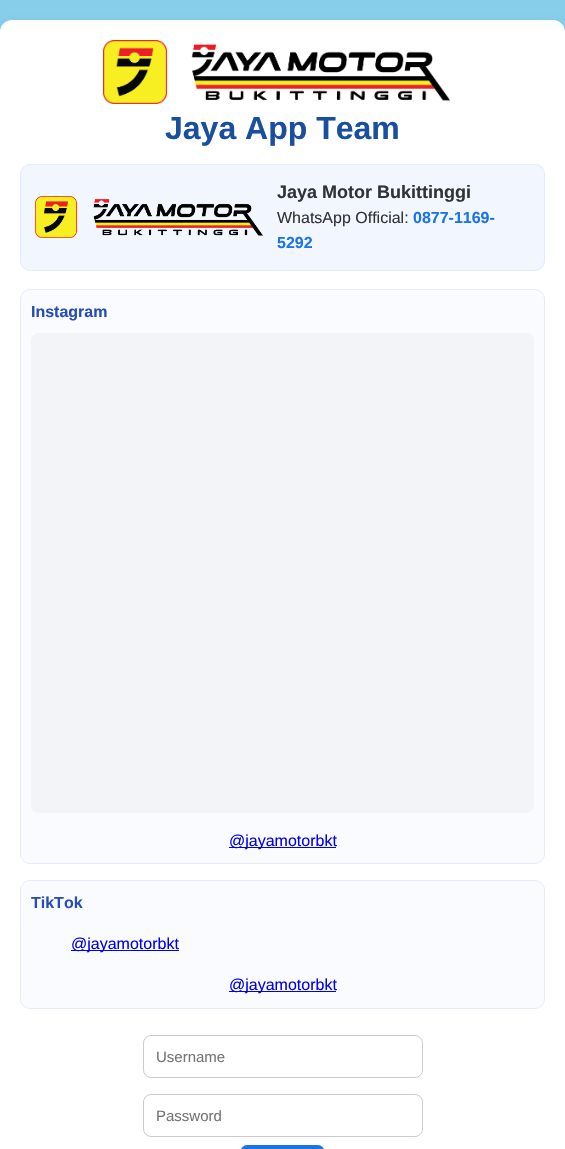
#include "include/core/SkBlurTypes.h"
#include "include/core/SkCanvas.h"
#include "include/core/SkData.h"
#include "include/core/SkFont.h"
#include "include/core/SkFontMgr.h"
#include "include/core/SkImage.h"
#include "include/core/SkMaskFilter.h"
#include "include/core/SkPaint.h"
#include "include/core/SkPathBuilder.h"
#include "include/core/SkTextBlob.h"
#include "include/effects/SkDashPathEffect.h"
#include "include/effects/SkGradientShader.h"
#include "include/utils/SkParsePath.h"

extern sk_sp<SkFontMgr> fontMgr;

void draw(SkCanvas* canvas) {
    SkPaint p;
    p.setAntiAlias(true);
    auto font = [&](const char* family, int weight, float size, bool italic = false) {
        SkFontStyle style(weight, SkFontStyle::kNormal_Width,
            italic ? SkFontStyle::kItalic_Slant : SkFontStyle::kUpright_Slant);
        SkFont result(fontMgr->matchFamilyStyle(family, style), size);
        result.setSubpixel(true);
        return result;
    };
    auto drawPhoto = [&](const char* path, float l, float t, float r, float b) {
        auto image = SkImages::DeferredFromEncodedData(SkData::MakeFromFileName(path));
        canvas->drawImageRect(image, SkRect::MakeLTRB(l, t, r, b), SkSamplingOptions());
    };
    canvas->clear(0xFF87CEEB);
    p.setColor(0x1A000000);
    p.setMaskFilter(SkMaskFilter::MakeBlur(kNormal_SkBlurStyle, 4));
    canvas->drawRoundRect(SkRect::MakeLTRB(0, 24, 565, 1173), 12, 12, p);
    p.setMaskFilter(nullptr);
    p.setColor(0xFFFFFFFF);
    canvas->drawRoundRect(SkRect::MakeLTRB(0, 20, 565, 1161), 12, 12, p);
    drawPhoto("media/1.png", 103, 40, 450, 104);
    auto font1 = font("Liberation Sans", 700, 32);
    p.setColor(0xFF1A4F9E);
    canvas->drawString("Jaya App Team", 165, 139, font1, p);
    p.setColor(0xFFF2F6FF);
    canvas->drawRoundRect(SkRect::MakeLTRB(20.5f, 164.5f, 544.5f, 270.5f), 9.5f, 9.5f, p);
    p.setStyle(SkPaint::kStroke_Style);
    p.setStrokeWidth(1);
    p.setColor(0xFFE3E9FF);
    canvas->drawRoundRect(SkRect::MakeLTRB(20.5f, 164.5f, 544.5f, 270.5f), 9.5f, 9.5f, p);
    drawPhoto("media/2.png", 35, 196, 263, 238);
    auto font2 = font("Liberation Sans", 700, 18);
    p.setStyle(SkPaint::kFill_Style);
    p.setColor(0xFF333333);
    canvas->drawString("Jaya Motor Bukittinggi", 277, 198, font2, p);
    auto font3 = font("Liberation Sans", 400, 16);
    canvas->drawString("WhatsApp Official:", 277, 223, font3, p);
    auto font4 = font("Liberation Sans", 700, 16);
    p.setColor(0xFF1A73E8);
    canvas->drawString("0877-1169-", 413, 223, font4, p);
    canvas->drawString("5292", 277, 248, font4, p);
    p.setColor(0xFFFAFBFF);
    canvas->drawRoundRect(SkRect::MakeLTRB(20.5f, 289.5f, 544.5f, 863.5f), 9.5f, 9.5f, p);
    p.setStyle(SkPaint::kStroke_Style);
    p.setColor(0xFFE7EAFF);
    canvas->drawRoundRect(SkRect::MakeLTRB(20.5f, 289.5f, 544.5f, 863.5f), 9.5f, 9.5f, p);
    p.setStyle(SkPaint::kFill_Style);
    p.setColor(0xFF264DB5);
    canvas->drawString("Instagram", 31, 317, font4, p);
    p.setColor(0xFFF2F4F8);
    canvas->drawRoundRect(SkRect::MakeLTRB(31, 333, 534, 813), 8, 8, p);
    p.setColor(0xFF0000EE);
    canvas->drawRect(SkRect::MakeLTRB(229, 847, 336, 848), p);
    canvas->drawString("@jayamotorbkt", 229, 846, font3, p);
    p.setColor(0xFFFAFBFF);
    canvas->drawRoundRect(SkRect::MakeLTRB(20.5f, 880.5f, 544.5f, 1008.5f), 9.5f, 9.5f, p);
    p.setStyle(SkPaint::kStroke_Style);
    p.setColor(0xFFE7EAFF);
    canvas->drawRoundRect(SkRect::MakeLTRB(20.5f, 880.5f, 544.5f, 1008.5f), 9.5f, 9.5f, p);
    p.setStyle(SkPaint::kFill_Style);
    p.setColor(0xFF264DB5);
    canvas->drawString("TikTok", 31, 908, font4, p);
    p.setColor(0xFF0000EE);
    canvas->drawRect(SkRect::MakeLTRB(71, 950, 179, 951), p);
    canvas->drawString("@jayamotorbkt", 71, 949, font3, p);
    canvas->drawRect(SkRect::MakeLTRB(229, 991, 336, 992), p);
    canvas->drawString("@jayamotorbkt", 229, 990, font3, p);
    p.setStyle(SkPaint::kStroke_Style);
    p.setColor(0xFFCCCCCC);
    canvas->drawRoundRect(SkRect::MakeLTRB(143.5f, 1035.5f, 422.5f, 1077.5f), 7.5f, 7.5f, p);
    auto font5 = font("Liberation Sans", 400, 15);
    p.setStyle(SkPaint::kFill_Style);
    p.setColor(0xFF757575);
    canvas->drawString("Username", 156, 1062, font5, p);
    p.setStyle(SkPaint::kStroke_Style);
    p.setColor(0xFFCCCCCC);
    canvas->drawRoundRect(SkRect::MakeLTRB(143.5f, 1094.5f, 422.5f, 1136.5f), 7.5f, 7.5f, p);
    p.setStyle(SkPaint::kFill_Style);
    p.setColor(0xFF757575);
    canvas->drawString("Password", 156, 1121, font5, p);
    p.setColor(0xFF1A73E8);
    canvas->drawRoundRect(SkRect::MakeLTRB(241, 1145, 324, 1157), 8, 8, p);
}
